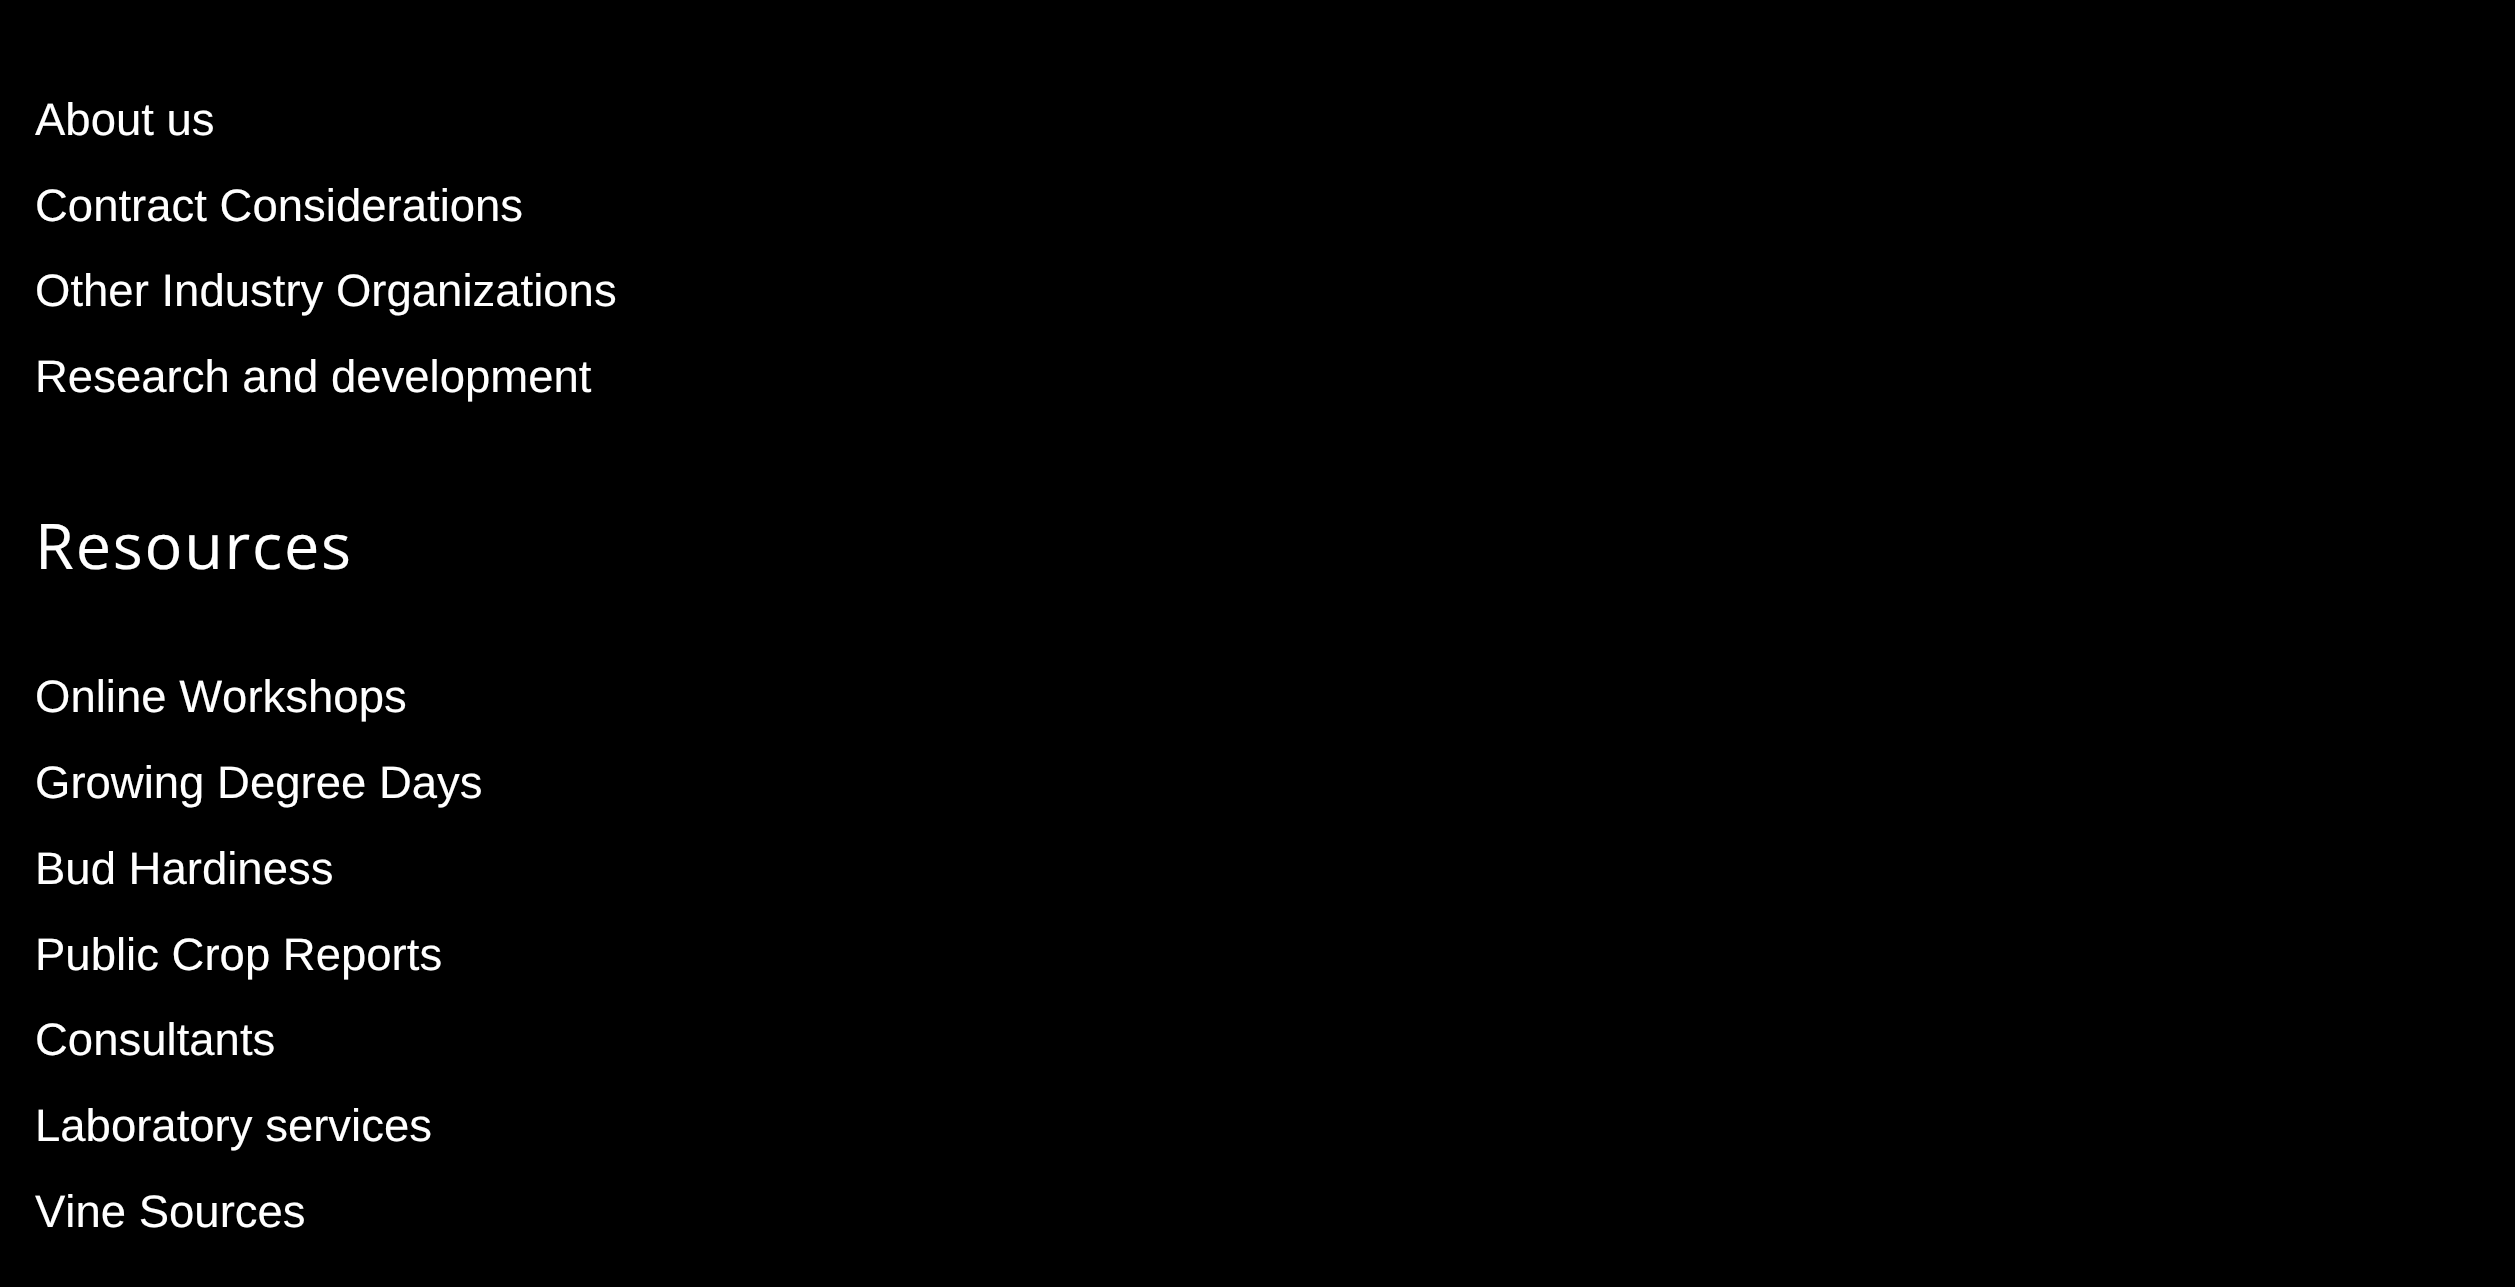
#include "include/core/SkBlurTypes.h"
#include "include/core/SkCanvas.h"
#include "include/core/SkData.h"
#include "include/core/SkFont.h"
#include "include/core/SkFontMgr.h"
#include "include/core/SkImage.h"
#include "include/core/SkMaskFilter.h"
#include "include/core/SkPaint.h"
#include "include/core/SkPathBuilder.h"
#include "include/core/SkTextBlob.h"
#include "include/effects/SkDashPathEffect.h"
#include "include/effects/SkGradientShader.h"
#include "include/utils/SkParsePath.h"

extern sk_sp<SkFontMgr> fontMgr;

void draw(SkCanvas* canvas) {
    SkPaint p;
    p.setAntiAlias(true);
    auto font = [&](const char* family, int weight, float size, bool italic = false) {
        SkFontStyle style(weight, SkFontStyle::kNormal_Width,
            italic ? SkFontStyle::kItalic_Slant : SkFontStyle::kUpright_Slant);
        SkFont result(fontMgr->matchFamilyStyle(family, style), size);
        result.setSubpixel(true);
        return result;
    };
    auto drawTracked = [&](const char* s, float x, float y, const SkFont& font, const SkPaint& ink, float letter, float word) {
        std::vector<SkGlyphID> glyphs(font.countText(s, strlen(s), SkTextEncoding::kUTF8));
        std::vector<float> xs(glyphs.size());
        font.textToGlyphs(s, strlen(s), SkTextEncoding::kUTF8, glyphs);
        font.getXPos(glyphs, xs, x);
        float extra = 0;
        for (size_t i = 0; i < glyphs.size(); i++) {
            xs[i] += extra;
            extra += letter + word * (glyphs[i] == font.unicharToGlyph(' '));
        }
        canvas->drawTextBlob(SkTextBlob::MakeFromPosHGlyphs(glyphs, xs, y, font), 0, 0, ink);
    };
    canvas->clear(0xFF000000);
    auto font1 = font("Liberation Sans", 400, 45.5f);
    p.setColor(0xFFFFFFFF);
    {
        const struct { const char* s; float x, y; } items[] = {
            {"About us", 35, 135},
            {"Contract Considerations", 35, 221},
            {"Other Industry Organizations", 35, 306},
            {"Research and development", 35, 392},
        };
        for (auto [s, x, y] : items) {
            canvas->drawString(s, x, y, font1, p);
        }
    }
    auto font2 = font("Open Sans", 400, 63);
    drawTracked("Resources", 35, 569, font2, p, 1.75f, 0);
    {
        const struct { const char* s; float x, y; } items[] = {
            {"Online Workshops", 35, 712},
            {"Growing Degree Days", 35, 798},
            {"Bud Hardiness", 35, 884},
            {"Public Crop Reports", 35, 970},
            {"Consultants", 35, 1055},
            {"Laboratory services", 35, 1141},
            {"Vine Sources", 35, 1227},
        };
        for (auto [s, x, y] : items) {
            canvas->drawString(s, x, y, font1, p);
        }
    }
}
